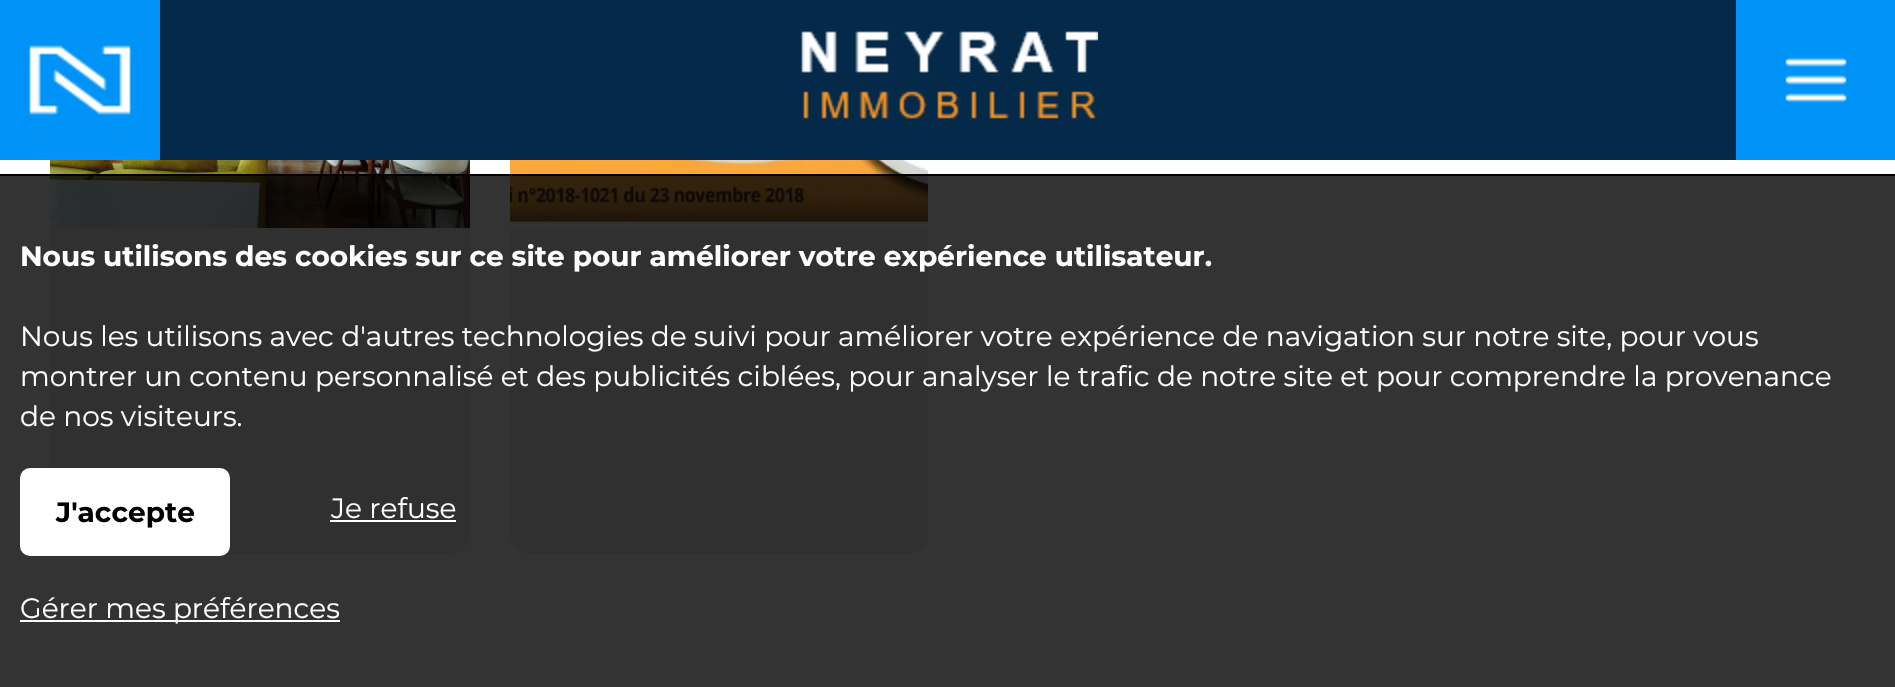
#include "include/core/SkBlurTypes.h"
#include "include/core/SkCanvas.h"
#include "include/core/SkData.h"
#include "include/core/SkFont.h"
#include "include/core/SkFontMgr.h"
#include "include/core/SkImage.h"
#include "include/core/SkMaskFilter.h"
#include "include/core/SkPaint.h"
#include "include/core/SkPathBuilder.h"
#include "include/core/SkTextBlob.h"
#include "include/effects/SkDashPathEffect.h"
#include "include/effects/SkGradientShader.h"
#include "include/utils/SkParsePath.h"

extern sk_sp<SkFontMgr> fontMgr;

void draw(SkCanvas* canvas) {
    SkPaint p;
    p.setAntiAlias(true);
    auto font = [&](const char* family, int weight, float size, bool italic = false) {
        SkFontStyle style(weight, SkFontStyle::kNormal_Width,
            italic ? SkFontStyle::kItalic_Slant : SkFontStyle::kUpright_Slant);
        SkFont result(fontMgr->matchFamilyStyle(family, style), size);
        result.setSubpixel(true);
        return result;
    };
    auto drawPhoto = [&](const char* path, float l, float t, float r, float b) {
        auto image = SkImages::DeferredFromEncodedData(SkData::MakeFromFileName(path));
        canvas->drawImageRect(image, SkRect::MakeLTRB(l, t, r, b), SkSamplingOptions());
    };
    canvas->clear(0xFFFFFFFF);
    p.setColor(0xFFF0F0F0);
    canvas->drawRoundRect(SkRect::MakeLTRB(50, -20, 470, 554), 20, 20, p);
    drawPhoto("media/1.png", 50, 160, 470, 228);
    canvas->drawPath(SkPathBuilder().moveTo(50, 314).lineTo(470, 314).lineTo(470, 534).cubicTo(470, 545, 461, 554, 450, 554).lineTo(70, 554).cubicTo(59, 554, 50, 545, 50, 534).close().detach(), p);
    canvas->drawRoundRect(SkRect::MakeLTRB(510, -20, 928, 554), 20, 20, p);
    drawPhoto("media/2.png", 510, 160, 928, 228);
    canvas->drawPath(SkPathBuilder().moveTo(510, 314).lineTo(928, 314).lineTo(928, 534).cubicTo(928, 545, 919, 554, 908, 554).lineTo(530, 554).cubicTo(519, 554, 510, 545, 510, 534).close().detach(), p);
    p.setColor(0xFF052948);
    canvas->drawRect(SkRect::MakeLTRB(160, 0, 1736, 160), p);
    drawPhoto("media/3.png", 0, 0, 160, 160);
    drawPhoto("media/4.png", 801, 31, 1098, 119);
    drawPhoto("media/5.png", 1736, 0, 1895, 160);
    p.setColor(0xCC000000);
    canvas->drawRect(SkRect::MakeLTRB(0, 176, 1895, 687), p);
    p.setColor(0xFF000000);
    canvas->drawRect(SkRect::MakeLTRB(0, 174, 1895, 176), p);
    auto font1 = font("Montserrat", 700, 28);
    p.setColor(0xFFFFFFFF);
    canvas->drawString("Nous utilisons des cookies sur ce site pour améliorer votre expérience utilisateur.", 20, 266, font1, p);
    auto font2 = font("Montserrat", 400, 28);
    {
        const struct { const char* s; float x, y; } items[] = {
            {"Nous les utilisons avec d'autres technologies de suivi pour améliorer votre expérience de navigation sur notre site, pour vous", 20, 346},
            {"montrer un contenu personnalisé et des publicités ciblées, pour analyser le trafic de notre site et pour comprendre la provenance", 20, 386},
            {"de nos visiteurs.", 20, 426},
        };
        for (auto [s, x, y] : items) {
            canvas->drawString(s, x, y, font2, p);
        }
    }
    canvas->drawRoundRect(SkRect::MakeLTRB(20, 468, 230, 556), 10, 10, p);
    p.setColor(0xFF000000);
    canvas->drawString("J'accepte", 56, 522, font1, p);
    p.setColor(0xFFFFFFFF);
    canvas->drawString("Je refuse", 331, 518, font2, p);
    canvas->drawRect(SkRect::MakeLTRB(330, 520, 456, 522), p);
    canvas->drawRect(SkRect::MakeLTRB(20, 620, 340, 622), p);
    canvas->drawString("Gérer mes préférences", 20, 618, font2, p);
}
